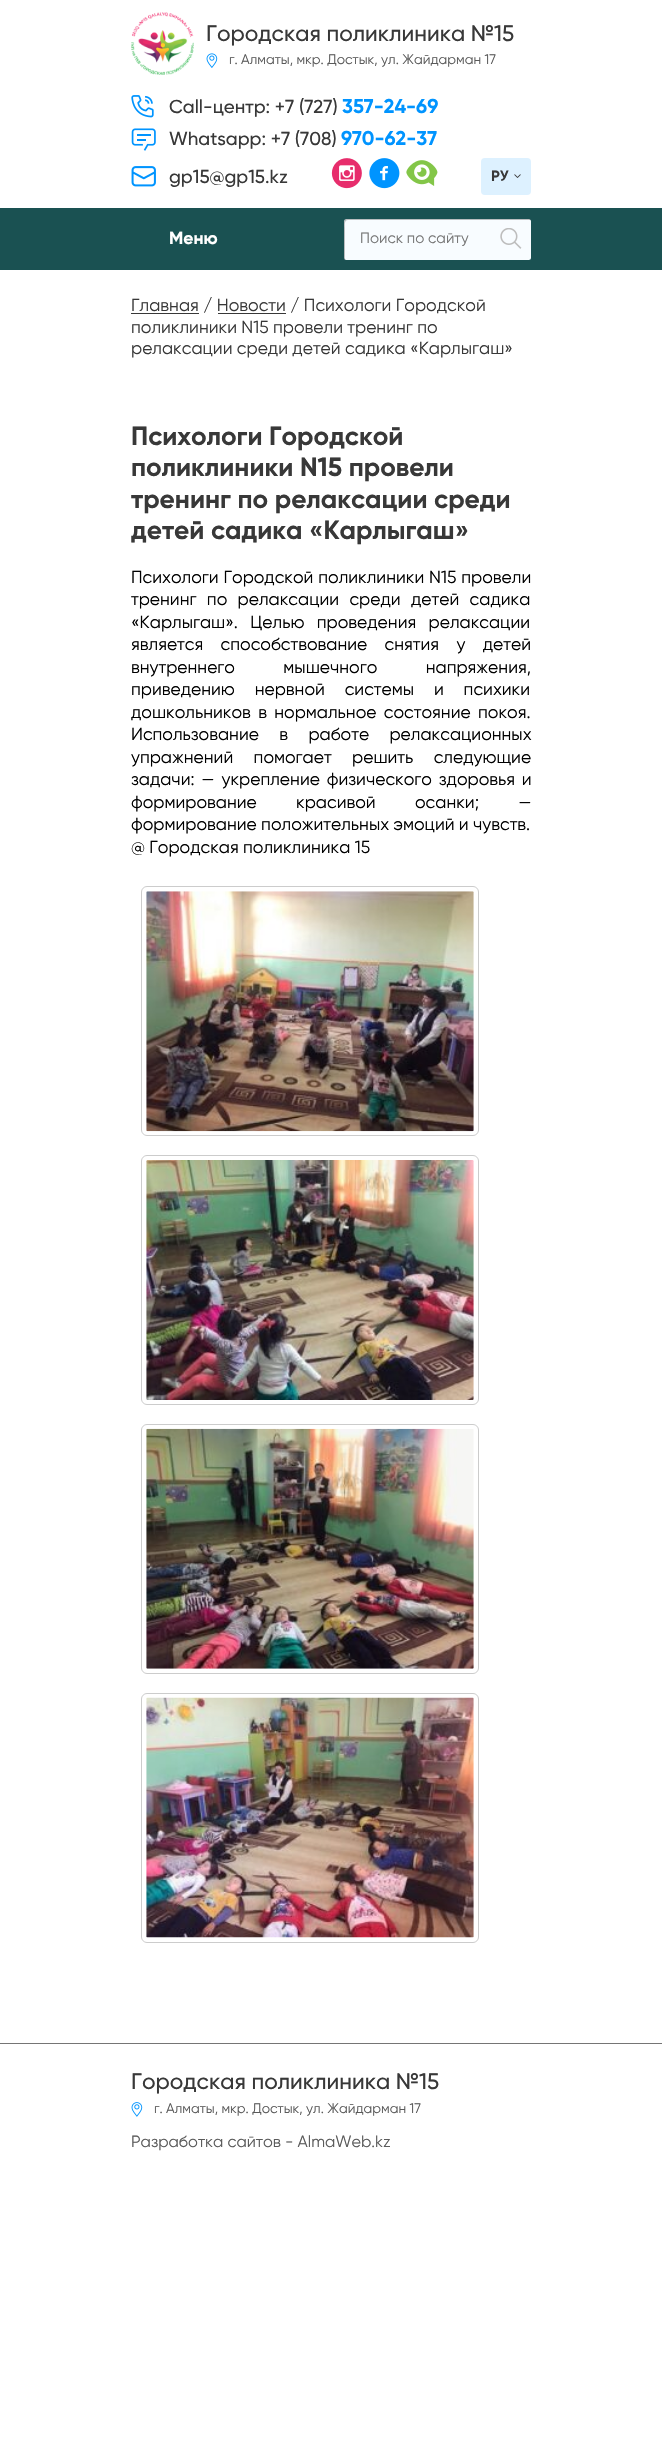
#include "include/core/SkBlurTypes.h"
#include "include/core/SkCanvas.h"
#include "include/core/SkData.h"
#include "include/core/SkFont.h"
#include "include/core/SkFontMgr.h"
#include "include/core/SkImage.h"
#include "include/core/SkMaskFilter.h"
#include "include/core/SkPaint.h"
#include "include/core/SkPathBuilder.h"
#include "include/core/SkTextBlob.h"
#include "include/effects/SkDashPathEffect.h"
#include "include/effects/SkGradientShader.h"
#include "include/utils/SkParsePath.h"

extern sk_sp<SkFontMgr> fontMgr;

void draw(SkCanvas* canvas) {
    SkPaint p;
    p.setAntiAlias(true);
    auto font = [&](const char* family, int weight, float size, bool italic = false) {
        SkFontStyle style(weight, SkFontStyle::kNormal_Width,
            italic ? SkFontStyle::kItalic_Slant : SkFontStyle::kUpright_Slant);
        SkFont result(fontMgr->matchFamilyStyle(family, style), size);
        result.setSubpixel(true);
        return result;
    };
    auto drawTracked = [&](const char* s, float x, float y, const SkFont& font, const SkPaint& ink, float letter, float word) {
        std::vector<SkGlyphID> glyphs(font.countText(s, strlen(s), SkTextEncoding::kUTF8));
        std::vector<float> xs(glyphs.size());
        font.textToGlyphs(s, strlen(s), SkTextEncoding::kUTF8, glyphs);
        font.getXPos(glyphs, xs, x);
        float extra = 0;
        for (size_t i = 0; i < glyphs.size(); i++) {
            xs[i] += extra;
            extra += letter + word * (glyphs[i] == font.unicharToGlyph(' '));
        }
        canvas->drawTextBlob(SkTextBlob::MakeFromPosHGlyphs(glyphs, xs, y, font), 0, 0, ink);
    };
    auto drawPhoto = [&](const char* path, float l, float t, float r, float b) {
        auto image = SkImages::DeferredFromEncodedData(SkData::MakeFromFileName(path));
        canvas->drawImageRect(image, SkRect::MakeLTRB(l, t, r, b), SkSamplingOptions());
    };
    canvas->clear(0xFFFFFFFF);
    drawPhoto("media/1.png", 131, 12, 194, 75);
    auto font1 = font("Gilroy", 500, 22.5f);
    p.setColor(0xFF383838);
    canvas->drawString("Городская поликлиника №15", 206, 41, font1, p);
    drawPhoto("media/2.png", 206, 53, 218, 68);
    auto font2 = font("Gilroy", 400, 13.75f);
    p.setColor(0xFF5A5A5A);
    canvas->drawString("г. Алматы, мкр. Достык, ул. Жайдарман 17", 229, 64, font2, p);
    drawPhoto("media/3.png", 131, 95, 154, 118);
    auto font3 = font("Gilroy", 500, 18.75f);
    p.setColor(0xFF383838);
    canvas->drawString("Call-центр: +7 (727)", 169, 113, font3, p);
    auto font4 = font("Gilroy", 700, 20);
    p.setColor(0xFF0094FF);
    canvas->drawString("357-24-69", 342, 113, font4, p);
    drawPhoto("media/4.png", 131, 128, 156, 151);
    p.setColor(0xFF383838);
    canvas->drawString("Whatsapp: +7 (708)", 169, 145, font3, p);
    p.setColor(0xFF0094FF);
    canvas->drawString("970-62-37", 341, 145, font4, p);
    drawPhoto("media/5.png", 131, 166, 156, 187);
    p.setColor(0xFF383838);
    canvas->drawString("gp15@gp15.kz", 169, 183, font3, p);
    drawPhoto("media/6.png", 331, 158, 362, 189);
    drawPhoto("media/7.png", 369, 158, 400, 189);
    drawPhoto("media/8.png", 406, 160, 438, 186);
    p.setColor(0xFFDDF1FF);
    canvas->drawRoundRect(SkRect::MakeLTRB(481, 158, 531, 195), 4, 4, p);
    drawPhoto("media/9.png", 514, 174, 521, 178);
    auto font5 = font("Gilroy", 700, 15);
    p.setColor(0xFF383838);
    canvas->drawString("РУ", 491, 181, font5, p);
    p.setColor(0xFF1A5152);
    canvas->drawRect(SkRect::MakeLTRB(0, 208, 662, 270), p);
    auto font6 = font("Gilroy", 700, 17.5f);
    p.setColor(0xFFFFFFFF);
    canvas->drawString("Меню", 169, 244, font6, p);
    p.setColor(0xFFF8FCFF);
    canvas->drawRoundRect(SkRect::MakeLTRB(344, 219, 531, 260), 2.5f, 2.5f, p);
    p.setColor(0x40000000);
    canvas->drawPath(SkPathBuilder().moveTo(348, 220).lineTo(531, 220).cubicTo(530, 219, 529, 219, 528, 219).lineTo(346, 219).cubicTo(345, 219, 344, 220, 344, 222).lineTo(344, 258).cubicTo(344, 258, 344, 259, 345, 260).lineTo(345, 228).cubicTo(345, 225, 344, 220, 348, 220).close().detach(), p);
    auto font7 = font("Gilroy", 400, 15);
    p.setColor(0xFF757575);
    canvas->drawString("Поиск по сайту", 360, 243, font7, p);
    drawPhoto("media/10.png", 500, 228, 522, 249);
    p.setColor(0xFF383838);
    canvas->drawRect(SkRect::MakeLTRB(131, 313, 199, 314), p);
    auto font8 = font("Gilroy", 400, 17.5f);
    canvas->drawString("Главная / Новости / Психологи Городской", 131, 311, font8, p);
    canvas->drawRect(SkRect::MakeLTRB(218, 313, 286, 314), p);
    canvas->drawString("поликлиники N15 провели тренинг по", 131, 333, font8, p);
    canvas->drawString("релаксации среди детей садика «Карлыгаш»", 131, 354, font8, p);
    auto font9 = font("Gilroy", 700, 26.25f);
    {
        const struct { const char* s; float x, y; } items[] = {
            {"Психологи Городской", 131, 445},
            {"поликлиники N15 провели", 131, 476},
            {"тренинг по релаксации среди", 131, 508},
            {"детей садика «Карлыгаш»", 131, 539},
        };
        for (auto [s, x, y] : items) {
            canvas->drawString(s, x, y, font9, p);
        }
    }
    p.setColor(0xFF000000);
    drawTracked("Психологи Городской поликлиники N15 провели", 131, 583, font8, p, 0, 0.5f);
    drawTracked("тренинг по релаксации среди детей садика", 131, 605, font8, p, 0, 6);
    drawTracked("«Карлыгаш». Целью проведения релаксации", 131, 628, font8, p, 0, 8);
    drawTracked("является способствование снятия у детей", 131, 650, font8, p, 0, 13);
    drawTracked("внутреннего мышечного напряжения,", 131, 673, font8, p, 0, 44);
    drawTracked("приведению нервной системы и психики", 131, 695, font8, p, 0, 15.5f);
    drawTracked("дошкольников в нормальное состояние покоя.", 131, 718, font8, p, 0, 3);
    drawTracked("Использование в работе релаксационных", 131, 740, font8, p, 0, 16);
    drawTracked("упражнений помогает решить следующие", 131, 763, font8, p, 0, 16);
    drawTracked("задачи: — укрепление физического здоровья и", 131, 785, font8, p, 0, 2.5f);
    drawTracked("формирование красивой осанки; —", 131, 808, font8, p, 0, 35);
    canvas->drawString("формирование положительных эмоций и чувств.", 131, 830, font8, p);
    canvas->drawString("@ Городская поликлиника 15", 131, 853, font8, p);
    p.setStyle(SkPaint::kStroke_Style);
    p.setStrokeWidth(1);
    p.setColor(0xFFCCCCCC);
    canvas->drawRoundRect(SkRect::MakeLTRB(141.5f, 886.5f, 478.5f, 1135.5f), 5.5f, 5.5f, p);
    drawPhoto("media/11.png", 146, 891, 474, 1132);
    canvas->drawRoundRect(SkRect::MakeLTRB(141.5f, 1155.5f, 478.5f, 1404.5f), 5.5f, 5.5f, p);
    drawPhoto("media/12.png", 146, 1160, 474, 1400);
    canvas->drawRoundRect(SkRect::MakeLTRB(141.5f, 1424.5f, 478.5f, 1673.5f), 5.5f, 5.5f, p);
    drawPhoto("media/13.png", 146, 1428, 474, 1669);
    canvas->drawRoundRect(SkRect::MakeLTRB(141.5f, 1693.5f, 478.5f, 1942.5f), 5.5f, 5.5f, p);
    drawPhoto("media/14.png", 146, 1697, 474, 1938);
    p.setStyle(SkPaint::kFill_Style);
    p.setColor(0xFF757575);
    canvas->drawRect(SkRect::MakeLTRB(0, 2043, 662, 2044), p);
    p.setColor(0xFF383838);
    canvas->drawString("Городская поликлиника №15", 131, 2089, font1, p);
    drawPhoto("media/15.png", 131, 2102, 143, 2117);
    p.setColor(0xFF5A5A5A);
    canvas->drawString("г. Алматы, мкр. Достык, ул. Жайдарман 17", 154, 2113, font2, p);
    auto font10 = font("Gilroy", 400, 16.25f);
    canvas->drawString("Разработка сайтов - AlmaWeb.kz", 131, 2147, font10, p);
}
